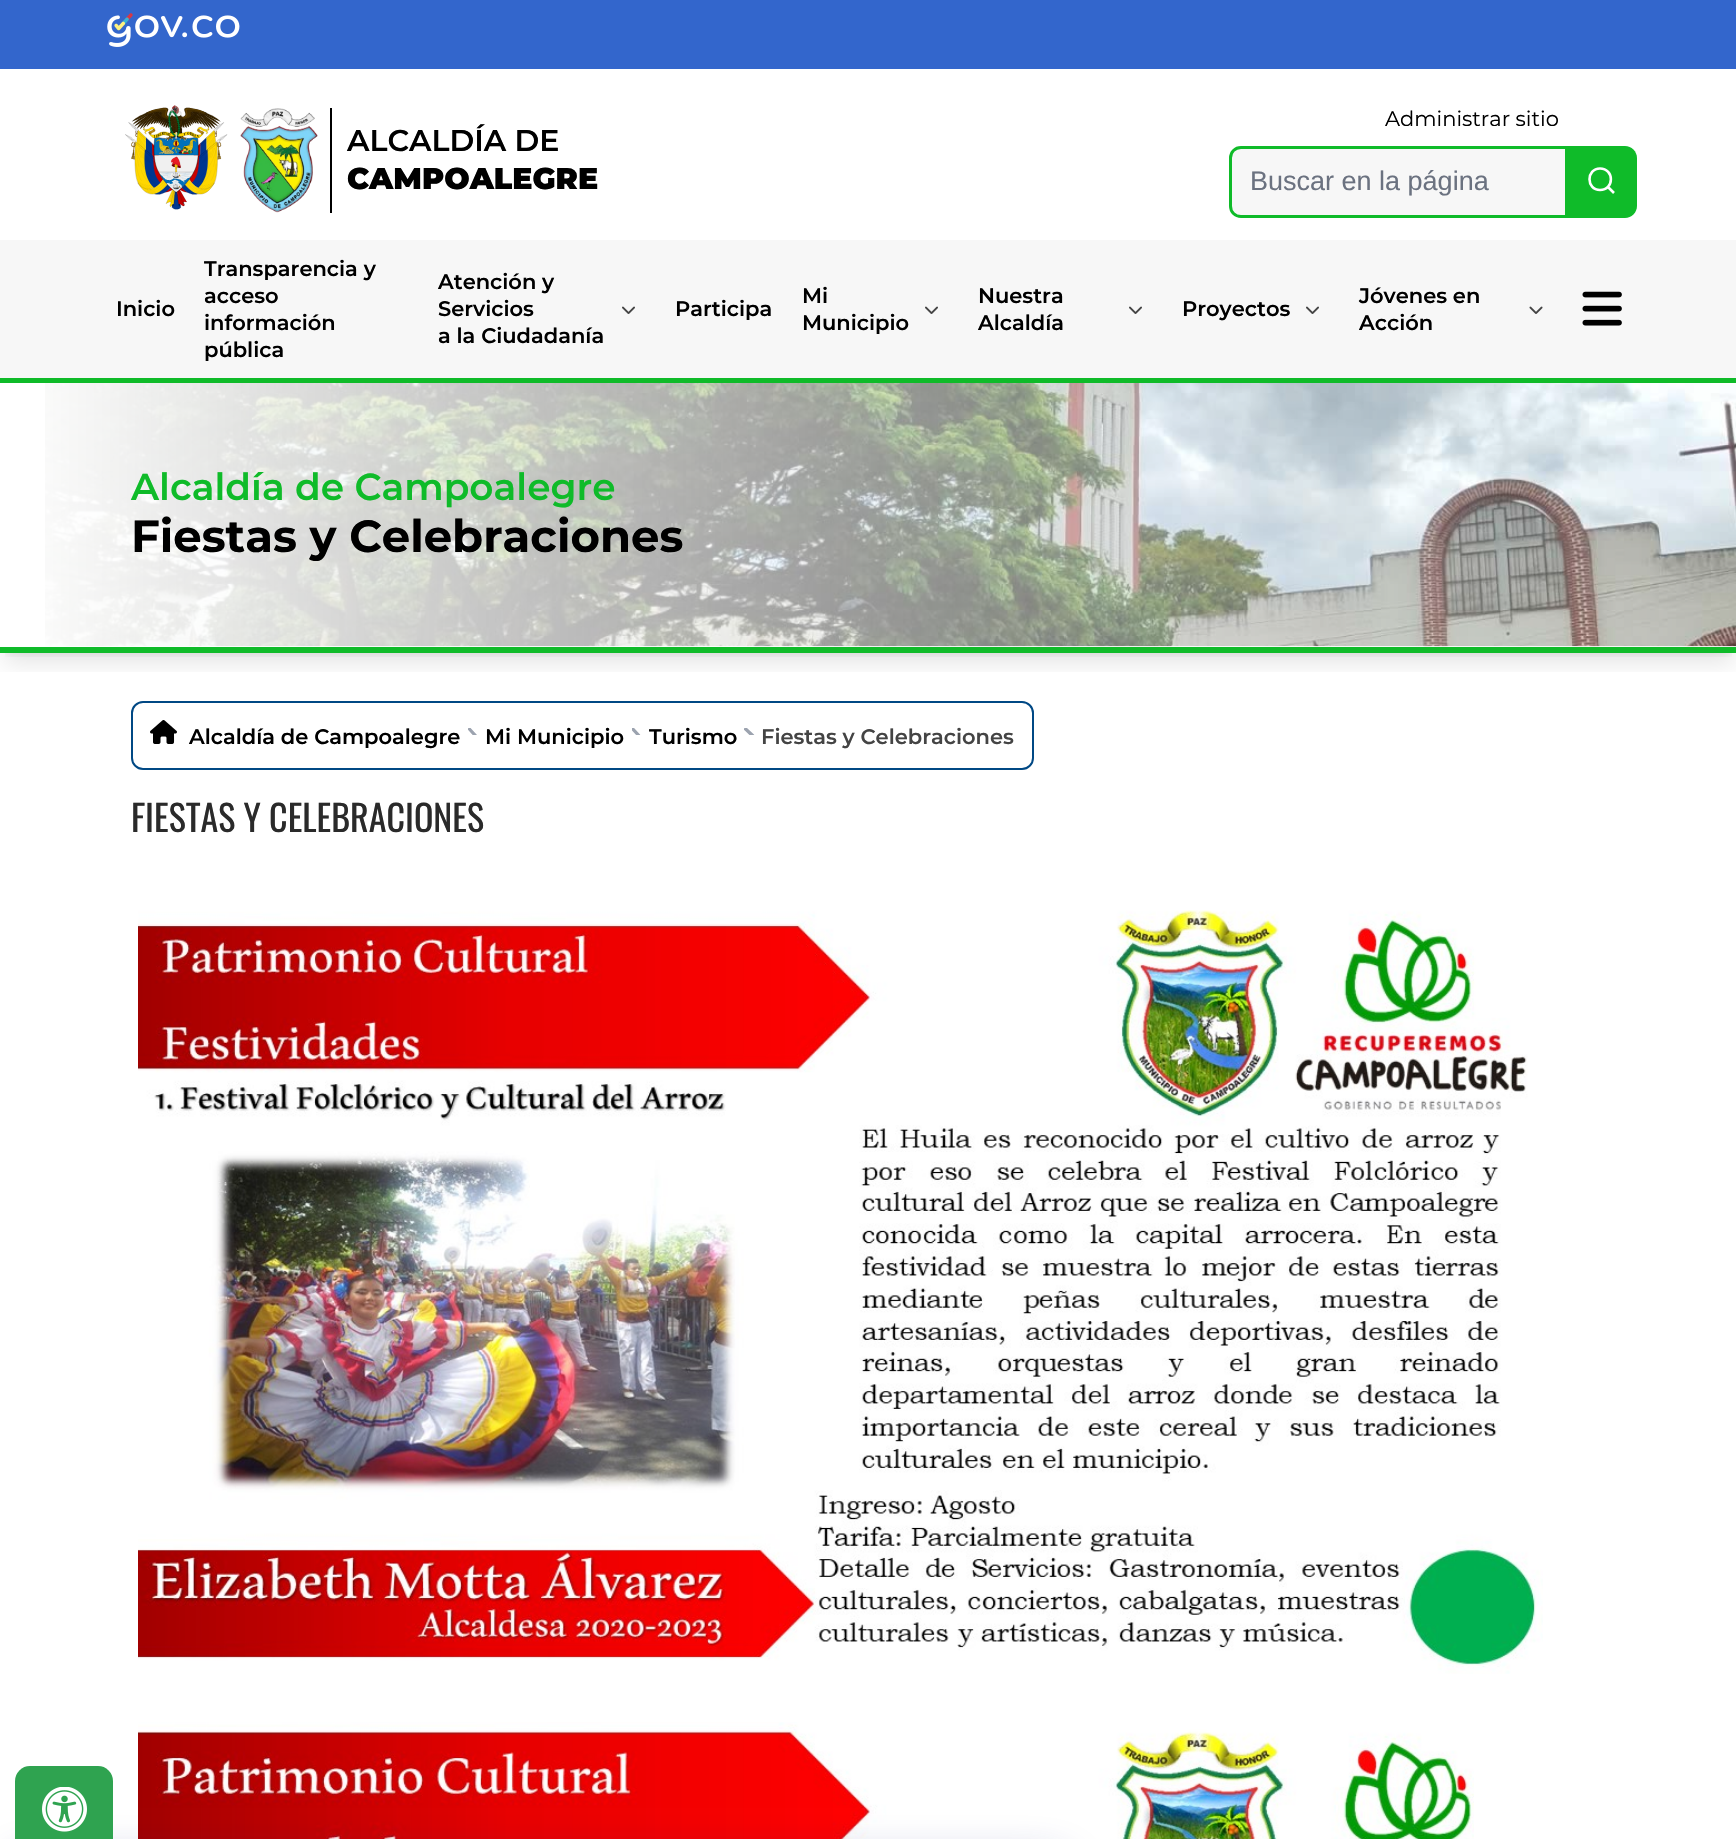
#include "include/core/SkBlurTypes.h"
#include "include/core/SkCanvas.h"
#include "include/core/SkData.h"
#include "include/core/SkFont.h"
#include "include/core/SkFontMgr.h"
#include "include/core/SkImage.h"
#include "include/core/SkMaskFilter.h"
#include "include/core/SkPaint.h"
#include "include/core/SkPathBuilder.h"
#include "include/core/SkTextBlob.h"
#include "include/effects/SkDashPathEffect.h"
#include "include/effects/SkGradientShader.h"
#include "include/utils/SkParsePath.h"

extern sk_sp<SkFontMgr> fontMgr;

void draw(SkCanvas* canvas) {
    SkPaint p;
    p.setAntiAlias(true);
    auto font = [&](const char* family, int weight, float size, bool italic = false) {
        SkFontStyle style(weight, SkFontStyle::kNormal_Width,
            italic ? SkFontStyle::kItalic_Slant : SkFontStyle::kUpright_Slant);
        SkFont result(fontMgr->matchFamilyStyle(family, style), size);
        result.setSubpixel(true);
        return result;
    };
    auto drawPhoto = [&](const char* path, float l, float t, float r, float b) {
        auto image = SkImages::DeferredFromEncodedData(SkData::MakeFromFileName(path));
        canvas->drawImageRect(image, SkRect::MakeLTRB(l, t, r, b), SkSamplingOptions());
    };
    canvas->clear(0xFFFFFFFF);
    p.setColor(0xFF3366CC);
    canvas->drawRect(SkRect::MakeLTRB(0, 0, 1736, 69), p);
    drawPhoto("media/1.png", 107, 13, 240, 47);
    drawPhoto("media/2.png", 125, 105, 228, 210);
    drawPhoto("media/3.png", 240, 108, 318, 213);
    p.setColor(0xFF000000);
    canvas->drawRect(SkRect::MakeLTRB(330, 108, 332, 213), p);
    auto font1 = font("Montserrat", 600, 30);
    canvas->drawString("ALCALDÍA DE", 347, 151, font1, p);
    auto font2 = font("Montserrat", 900, 30);
    canvas->drawString("CAMPOALEGRE", 347, 189, font2, p);
    auto font3 = font("Montserrat", 400, 21);
    canvas->drawString("Administrar sitio", 1385, 126, font3, p);
    p.setColor(0xFFF7F7F7);
    canvas->drawPath(SkPathBuilder().moveTo(1241, 147.5f).lineTo(1572.5f, 147.5f).lineTo(1572.5f, 216.5f).lineTo(1241, 216.5f).cubicTo(1235, 216.5f, 1230.5f, 212, 1230.5f, 206).lineTo(1230.5f, 158).cubicTo(1230.5f, 152, 1235, 147.5f, 1241, 147.5f).close().detach(), p);
    p.setStyle(SkPaint::kStroke_Style);
    p.setStrokeWidth(3);
    p.setColor(0xFF0FBB29);
    canvas->drawPath(SkPathBuilder().moveTo(1241, 147.5f).lineTo(1572.5f, 147.5f).lineTo(1572.5f, 216.5f).lineTo(1241, 216.5f).cubicTo(1235, 216.5f, 1230.5f, 212, 1230.5f, 206).lineTo(1230.5f, 158).cubicTo(1230.5f, 152, 1235, 147.5f, 1241, 147.5f).close().detach(), p);
    auto font4 = font("Liberation Sans", 400, 27);
    p.setStyle(SkPaint::kFill_Style);
    p.setColor(0xFF6B7280);
    canvas->drawString("Buscar en la página", 1250, 190, font4, p);
    p.setColor(0xFF0FBB29);
    canvas->drawPath(SkPathBuilder().moveTo(1565, 146).lineTo(1625, 146).cubicTo(1631.5f, 146, 1637, 151.5f, 1637, 158).lineTo(1637, 206).cubicTo(1637, 212.5f, 1631.5f, 218, 1625, 218).lineTo(1565, 218).close().detach(), p);
    p.setStyle(SkPaint::kStroke_Style);
    p.setStrokeWidth(2.6f);
    p.setColor(0xFFFFFFFF);
    canvas->drawPath(SkPathBuilder().moveTo(1600, 190).cubicTo(1614.5f, 190, 1614.5f, 168.5f, 1600, 168.5f).cubicTo(1586, 168.5f, 1586, 190, 1600, 190).close().moveTo(1614, 193).lineTo(1608, 187).detach(), p);
    canvas->save();
    canvas->clipRect(SkRect::MakeLTRB(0, 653, 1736, 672));
    p.setStyle(SkPaint::kFill_Style);
    p.setColor(0x1A000000);
    p.setMaskFilter(SkMaskFilter::MakeBlur(kNormal_SkBlurStyle, 11));
    canvas->drawRect(SkRect::MakeLTRB(5, 402, 1733, 663), p);
    p.setMaskFilter(nullptr);
    canvas->restore();
    p.setColor(0xFFF7F7F7);
    canvas->drawRect(SkRect::MakeLTRB(0, 240, 1736, 378), p);
    canvas->save();
    canvas->clipRect(SkRect::MakeLTRB(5, 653, 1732, 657));
    p.setColor(0x1A000000);
    p.setMaskFilter(SkMaskFilter::MakeBlur(kNormal_SkBlurStyle, 4.5f));
    canvas->drawRect(SkRect::MakeLTRB(6, 395, 1731, 653), p);
    p.setMaskFilter(nullptr);
    canvas->restore();
    p.setColor(0xFF0FBB29);
    canvas->drawRect(SkRect::MakeLTRB(0, 378, 1736, 383), p);
    auto font5 = font("Montserrat", 600, 21);
    p.setColor(0xFF000000);
    {
        const struct { const char* s; float x, y; } items[] = {
            {"Inicio", 116, 316},
            {"Transparencia y", 204, 276},
            {"acceso", 204, 303},
            {"información", 204, 330},
            {"pública", 204, 357},
            {"Atención y", 438, 289},
            {"Servicios", 438, 316},
            {"a la Ciudadanía", 438, 343},
        };
        for (auto [s, x, y] : items) {
            canvas->drawString(s, x, y, font5, p);
        }
    }
    drawPhoto("media/4.png", 622, 306, 635, 314);
    {
        const struct { const char* s; float x, y; } items[] = {
            {"Participa", 675, 316},
            {"Mi", 802, 303},
            {"Municipio", 802, 330},
        };
        for (auto [s, x, y] : items) {
            canvas->drawString(s, x, y, font5, p);
        }
    }
    drawPhoto("media/4.png", 925, 306, 938, 314);
    canvas->drawString("Nuestra", 978, 303, font5, p);
    canvas->drawString("Alcaldía", 978, 330, font5, p);
    drawPhoto("media/4.png", 1129, 306, 1142, 314);
    canvas->drawString("Proyectos", 1182, 316, font5, p);
    drawPhoto("media/4.png", 1306, 306, 1319, 314);
    canvas->drawString("Jóvenes en", 1359, 303, font5, p);
    canvas->drawString("Acción", 1359, 330, font5, p);
    drawPhoto("media/5.png", 1529, 306, 1543, 314);
    drawPhoto("media/6.png", 1582, 291, 1622, 326);
    p.setColor(0xFF0FBB29);
    canvas->drawRect(SkRect::MakeLTRB(0, 647, 1736, 653), p);
    drawPhoto("media/7.png", 45, 383, 1736, 647);
    auto font6 = font("Montserrat", 600, 37.5f);
    canvas->drawString("Alcaldía de Campoalegre", 131, 500, font6, p);
    auto font7 = font("Montserrat", 700, 45);
    p.setColor(0xFF000000);
    canvas->drawString("Fiestas y Celebraciones", 131, 552, font7, p);
    p.setStyle(SkPaint::kStroke_Style);
    p.setStrokeWidth(2);
    p.setColor(0xFF004884);
    canvas->drawRoundRect(SkRect::MakeLTRB(132, 702, 1033, 769), 11, 11, p);
    drawPhoto("media/8.png", 150, 720, 177, 744);
    p.setStyle(SkPaint::kFill_Style);
    p.setColor(0xFF000000);
    canvas->drawString("Alcaldía de Campoalegre", 189, 744, font5, p);
    drawPhoto("media/9.png", 468, 728, 477, 735);
    canvas->drawString("Mi Municipio", 485, 744, font5, p);
    drawPhoto("media/10.png", 632, 728, 641, 735);
    canvas->drawString("Turismo", 649, 744, font5, p);
    drawPhoto("media/11.png", 744, 728, 755, 735);
    p.setColor(0xFF444444);
    canvas->drawString("Fiestas y Celebraciones", 761, 744, font5, p);
    auto font8 = font("Oswald", 400, 36);
    p.setColor(0xFF2A2A2A);
    canvas->drawString("FIESTAS Y CELEBRACIONES", 131, 832, font8, p);
    drawPhoto("media/12.png", 138, 910, 1543, 1674);
    drawPhoto("media/13.png", 138, 1722, 1474, 1839);
    p.setColor(0x5E1F2687);
    p.setMaskFilter(SkMaskFilter::MakeBlur(kNormal_SkBlurStyle, 24));
    canvas->drawRoundRect(SkRect::MakeLTRB(15, 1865, 1065, 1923), 12, 12, p);
    p.setMaskFilter(nullptr);
    p.setColor(0xFF2FA350);
    canvas->drawRoundRect(SkRect::MakeLTRB(15, 1766, 113, 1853), 15, 15, p);
    drawPhoto("media/14.png", 42, 1787, 87, 1832);
}
